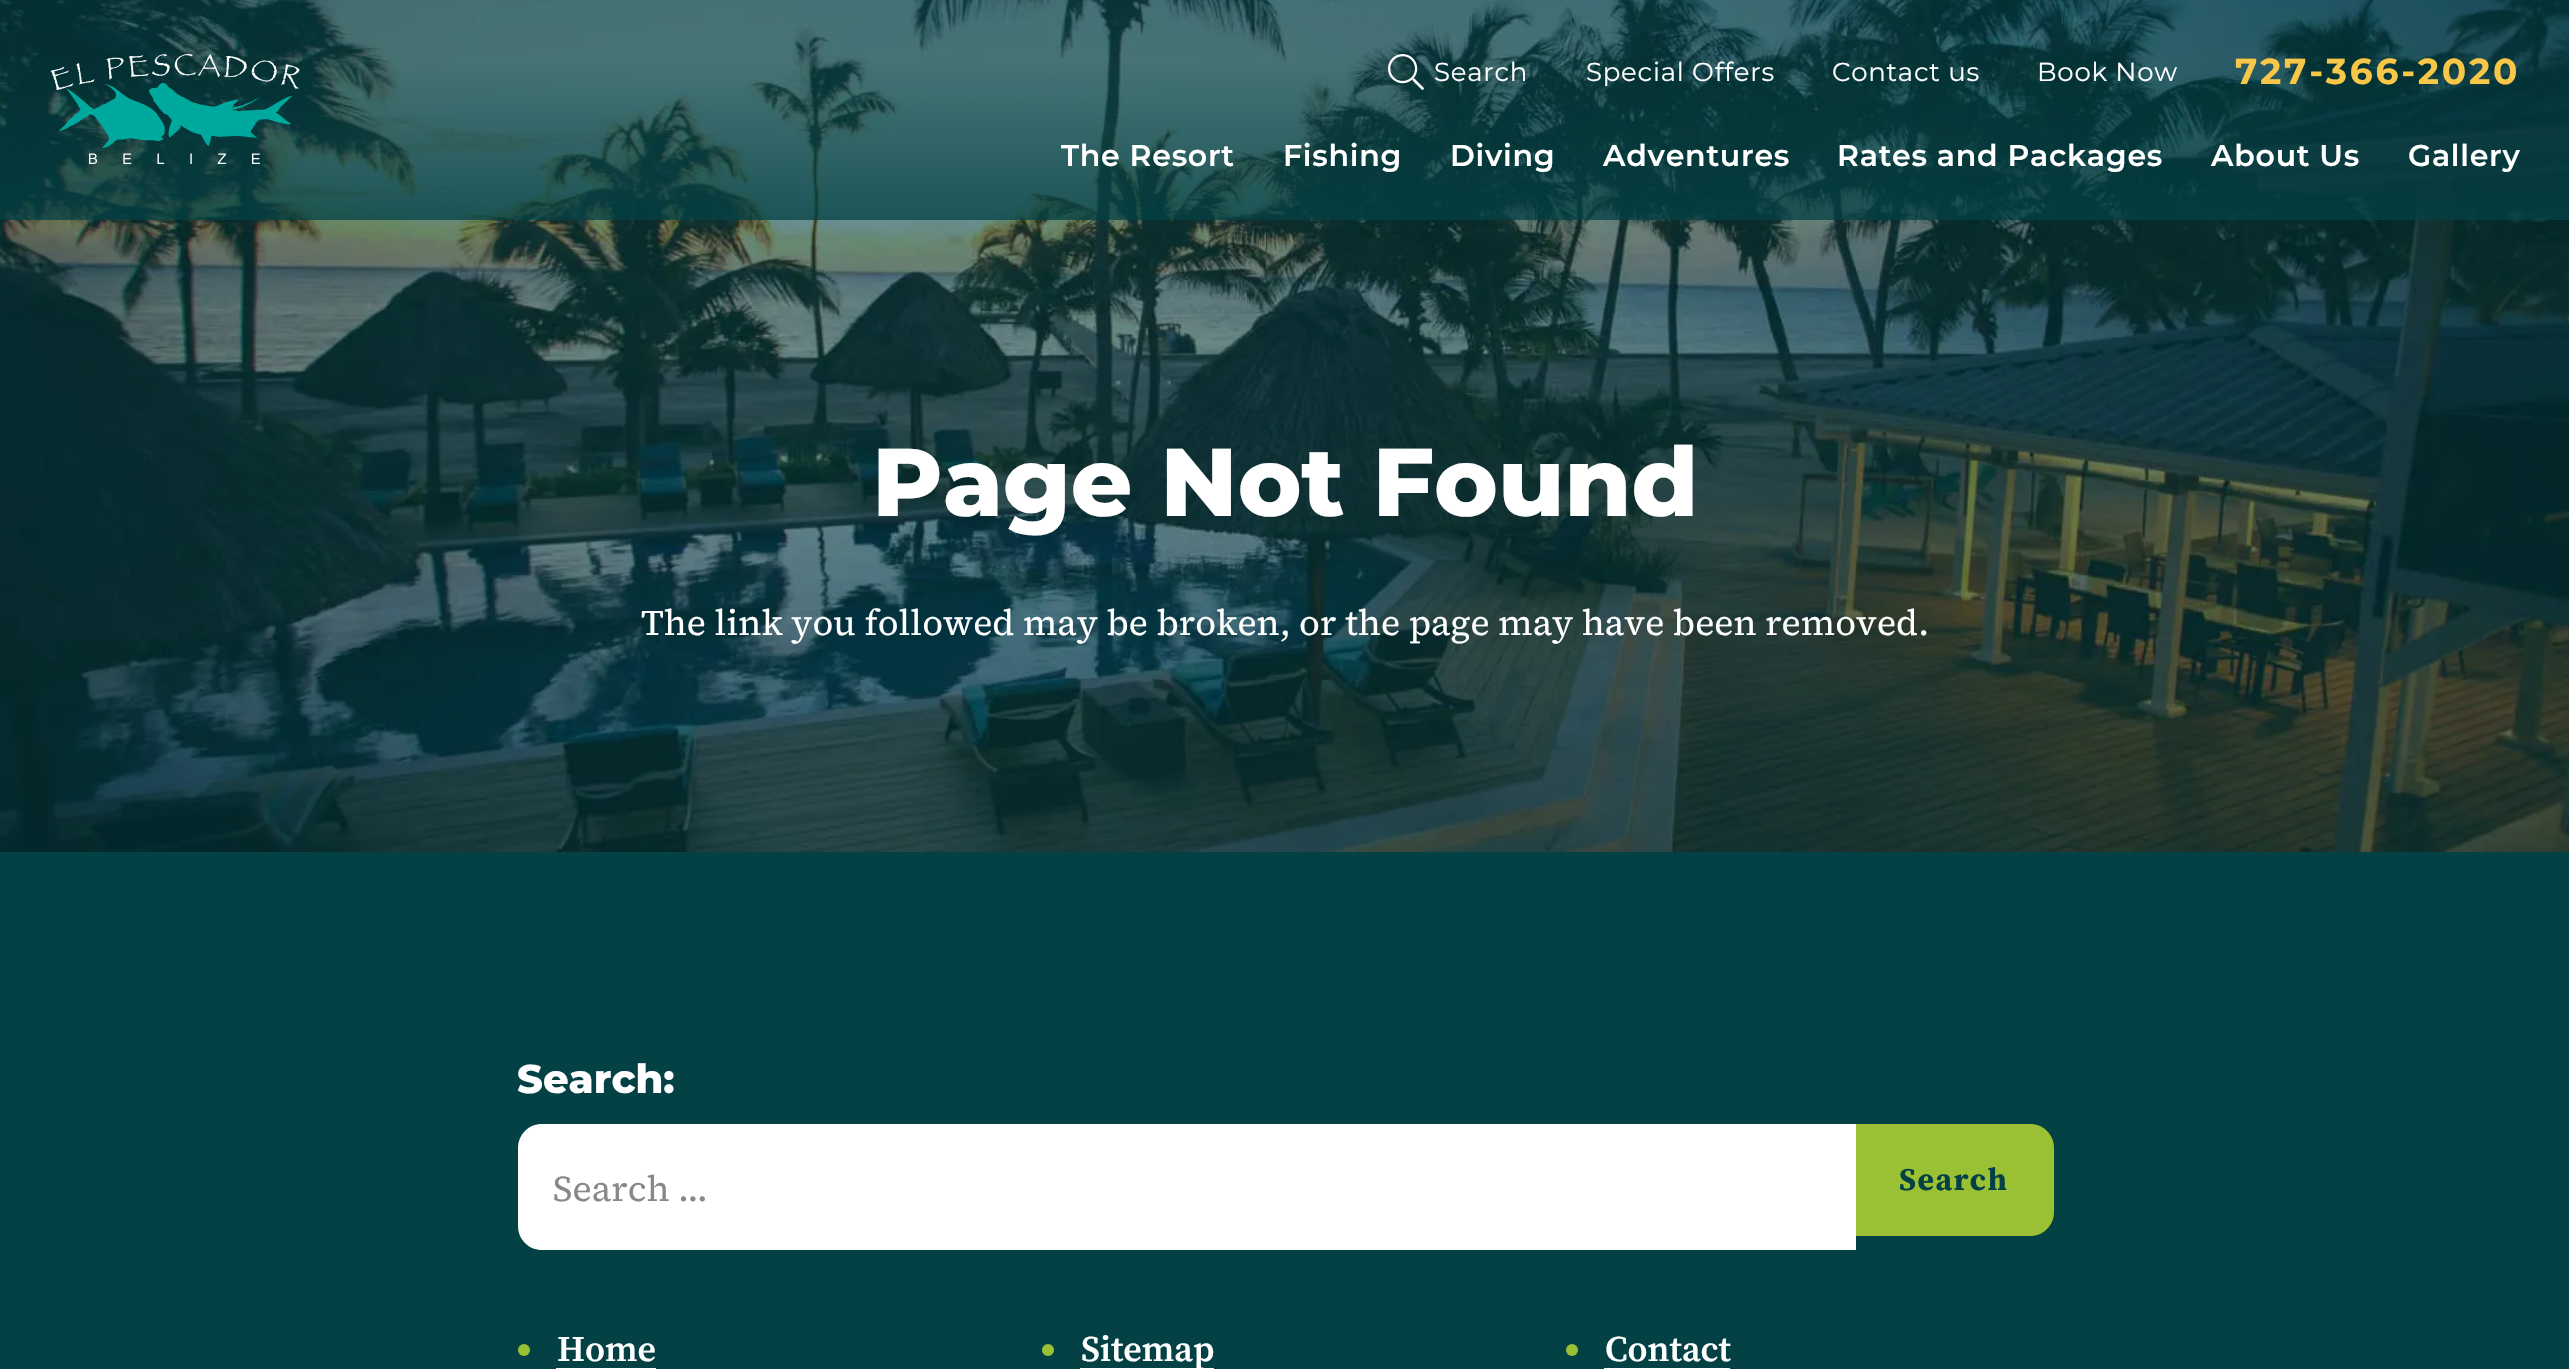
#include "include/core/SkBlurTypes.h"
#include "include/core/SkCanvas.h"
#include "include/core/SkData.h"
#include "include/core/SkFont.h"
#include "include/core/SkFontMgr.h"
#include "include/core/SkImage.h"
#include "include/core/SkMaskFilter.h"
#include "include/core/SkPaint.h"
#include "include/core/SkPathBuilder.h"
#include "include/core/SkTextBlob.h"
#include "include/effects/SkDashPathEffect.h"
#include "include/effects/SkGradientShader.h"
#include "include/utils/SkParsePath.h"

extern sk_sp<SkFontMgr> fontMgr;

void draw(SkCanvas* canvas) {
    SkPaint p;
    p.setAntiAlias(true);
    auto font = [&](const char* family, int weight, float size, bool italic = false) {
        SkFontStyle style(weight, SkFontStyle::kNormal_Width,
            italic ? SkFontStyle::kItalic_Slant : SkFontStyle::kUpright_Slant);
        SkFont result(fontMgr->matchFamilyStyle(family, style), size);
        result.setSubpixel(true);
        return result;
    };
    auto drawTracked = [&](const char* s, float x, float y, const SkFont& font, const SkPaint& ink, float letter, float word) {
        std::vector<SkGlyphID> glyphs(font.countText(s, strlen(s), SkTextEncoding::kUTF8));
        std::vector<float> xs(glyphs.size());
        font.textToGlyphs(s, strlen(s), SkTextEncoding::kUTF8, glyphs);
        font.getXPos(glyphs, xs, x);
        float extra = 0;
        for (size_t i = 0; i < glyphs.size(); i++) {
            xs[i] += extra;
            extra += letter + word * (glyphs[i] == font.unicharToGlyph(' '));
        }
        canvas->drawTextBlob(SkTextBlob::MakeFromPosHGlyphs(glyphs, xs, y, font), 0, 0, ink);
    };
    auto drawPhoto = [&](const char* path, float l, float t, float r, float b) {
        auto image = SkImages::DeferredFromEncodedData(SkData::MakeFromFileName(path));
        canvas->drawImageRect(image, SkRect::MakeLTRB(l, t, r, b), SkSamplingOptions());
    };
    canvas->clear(0xFF034145);
    drawPhoto("media/3.png", 0, 0, 2569, 852);
    drawPhoto("media/1.png", 50, 54, 300, 164);
    drawPhoto("media/2.png", 1388, 54, 1424, 90);
    auto font1 = font("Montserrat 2", 100, 26);
    p.setColor(0xFFFFFFFF);
    {
        const struct { const char* s; float x, y; } items[] = {
            {"Search", 1434, 81},
            {"Special Offers", 1586, 81},
            {"Contact us", 1832, 81},
            {"Book Now", 2037, 81},
        };
        for (auto [s, x, y] : items) {
            drawTracked(s, x, y, font1, p, 0.75f, 0);
        }
    }
    auto font2 = font("Montserrat", 700, 36);
    p.setColor(0xFFF9C748);
    drawTracked("727-366-2020", 2235, 84, font2, p, 2.75f, 0);
    auto font3 = font("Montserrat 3", 100, 30);
    p.setColor(0xFFFFFFFF);
    {
        const struct { const char* s; float x, y; } items[] = {
            {"The Resort", 1061, 166},
            {"Fishing", 1283, 166},
            {"Diving", 1450, 166},
            {"Adventures", 1603, 166},
            {"Rates and Packages", 1837, 166},
            {"About Us", 2211, 166},
            {"Gallery", 2408, 166},
        };
        for (auto [s, x, y] : items) {
            drawTracked(s, x, y, font3, p, 0.75f, 0);
        }
    }
    auto font4 = font("Montserrat", 100, 96);
    canvas->drawString("Page Not Found", 872, 516, font4, p);
    auto font5 = font("Source Serif 4", 400, 36);
    canvas->drawString("The link you followed may be broken, or the page may have been removed.", 641, 635, font5, p);
    auto font6 = font("Montserrat", 100, 40);
    canvas->drawString("Search:", 517, 1093, font6, p);
    canvas->drawPath(SkPathBuilder().moveTo(542, 1124).lineTo(1856, 1124).lineTo(1856, 1250).lineTo(542, 1250).cubicTo(528.5f, 1250, 518, 1239.5f, 518, 1226).lineTo(518, 1148).cubicTo(518, 1134.5f, 528.5f, 1124, 542, 1124).close().detach(), p);
    p.setColor(0xFF8B8788);
    canvas->drawString("Search …", 553, 1201, font5, p);
    p.setColor(0xFF9AC133);
    canvas->drawPath(SkPathBuilder().moveTo(1856, 1124).lineTo(2030, 1124).cubicTo(2043.5f, 1124, 2054, 1134.5f, 2054, 1148).lineTo(2054, 1212).cubicTo(2054, 1225.5f, 2043.5f, 1236, 2030, 1236).lineTo(1856, 1236).close().detach(), p);
    auto font7 = font("Source Serif 4", 700, 31.5f);
    p.setColor(0xFF034145);
    drawTracked("Search", 1899, 1190, font7, p, 1.5f, 0);
    p.setColor(0xFF9AC133);
    canvas->drawCircle(524, 1350, 6, p);
    auto font8 = font("Source Serif 4", 600, 36);
    p.setColor(0xFFFFFFFF);
    canvas->drawString("Home", 557, 1361, font8, p);
    canvas->drawRect(SkRect::MakeLTRB(556, 1368, 656, 1369), p);
    p.setColor(0xFF9AC133);
    canvas->drawCircle(1048, 1350, 6, p);
    p.setColor(0xFFFFFFFF);
    canvas->drawRect(SkRect::MakeLTRB(1080, 1368, 1214, 1369), p);
    canvas->drawString("Sitemap", 1081, 1361, font8, p);
    p.setColor(0xFF9AC133);
    canvas->drawCircle(1572, 1350, 6, p);
    p.setColor(0xFFFFFFFF);
    canvas->drawString("Contact", 1605, 1361, font8, p);
    canvas->drawRect(SkRect::MakeLTRB(1604, 1368, 1730, 1369), p);
}
